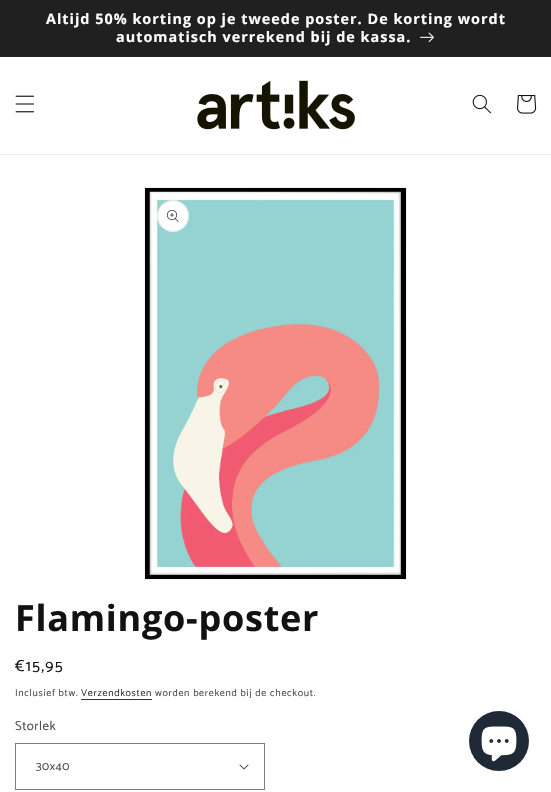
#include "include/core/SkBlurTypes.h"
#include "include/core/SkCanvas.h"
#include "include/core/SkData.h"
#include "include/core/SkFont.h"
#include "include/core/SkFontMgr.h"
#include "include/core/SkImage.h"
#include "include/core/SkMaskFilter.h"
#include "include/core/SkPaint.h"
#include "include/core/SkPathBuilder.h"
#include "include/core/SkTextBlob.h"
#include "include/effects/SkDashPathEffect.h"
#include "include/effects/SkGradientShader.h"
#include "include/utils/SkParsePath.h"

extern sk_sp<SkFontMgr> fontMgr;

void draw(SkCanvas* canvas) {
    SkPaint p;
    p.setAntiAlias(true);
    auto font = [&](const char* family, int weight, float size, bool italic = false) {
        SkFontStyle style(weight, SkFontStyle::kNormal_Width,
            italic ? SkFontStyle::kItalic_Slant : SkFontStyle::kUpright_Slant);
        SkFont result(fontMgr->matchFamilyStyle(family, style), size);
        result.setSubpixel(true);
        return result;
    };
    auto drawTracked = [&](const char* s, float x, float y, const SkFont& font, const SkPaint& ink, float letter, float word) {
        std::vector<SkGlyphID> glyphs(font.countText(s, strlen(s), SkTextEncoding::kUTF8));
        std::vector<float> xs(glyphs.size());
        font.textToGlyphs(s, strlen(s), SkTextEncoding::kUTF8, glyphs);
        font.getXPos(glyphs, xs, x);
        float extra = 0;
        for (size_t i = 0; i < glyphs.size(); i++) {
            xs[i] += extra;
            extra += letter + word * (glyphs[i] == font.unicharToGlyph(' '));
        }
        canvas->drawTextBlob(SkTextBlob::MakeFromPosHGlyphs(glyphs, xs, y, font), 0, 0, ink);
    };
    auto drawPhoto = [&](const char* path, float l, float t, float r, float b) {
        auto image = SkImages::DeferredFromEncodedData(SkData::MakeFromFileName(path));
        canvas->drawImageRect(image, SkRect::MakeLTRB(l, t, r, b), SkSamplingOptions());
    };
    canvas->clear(0xFFFFFFFF);
    p.setColor(0xFF252525);
    canvas->drawRect(SkRect::MakeLTRB(0, 56, 551, 57), p);
    p.setColor(0xFF202020);
    canvas->drawRect(SkRect::MakeLTRB(0, 0, 551, 56), p);
    auto font1 = font("Open Sans", 700, 14.4f);
    p.setColor(0xFFFFFFFF);
    drawTracked("Altijd 50% korting op je tweede poster. De korting wordt", 46, 24, font1, p, 1, 0);
    drawTracked("automatisch verrekend bij de kassa.", 116, 42, font1, p, 1, 0);
    drawPhoto("media/1.png", 420, 32, 434, 42);
    p.setColor(0xFFECECEC);
    canvas->drawRect(SkRect::MakeLTRB(0, 154, 551, 155), p);
    drawPhoto("media/2.png", 15, 95, 35, 113);
    drawPhoto("media/3.png", 197, 80, 355, 130);
    drawPhoto("media/4.png", 472, 94, 491, 114);
    drawPhoto("media/5.png", 517, 95, 537, 114);
    p.setStyle(SkPaint::kStroke_Style);
    p.setStrokeWidth(1);
    p.setColor(0xFFF3F3F3);
    canvas->drawRect(SkRect::MakeLTRB(144.5f, 187.5f, 406.5f, 579.5f), p);
    drawPhoto("media/6.png", 145, 188, 406, 579);
    p.setStyle(SkPaint::kFill_Style);
    p.setColor(0xFFFFFFFF);
    canvas->drawCircle(173, 216, 16, p);
    p.setStyle(SkPaint::kStroke_Style);
    p.setColor(0x1A121212);
    canvas->drawCircle(173, 216, 15.5f, p);
    drawPhoto("media/7.png", 167, 210, 179, 222);
    auto font2 = font("Open Sans", 700, 36);
    p.setStyle(SkPaint::kFill_Style);
    p.setColor(0xFF121212);
    drawTracked("Flamingo-poster", 15, 631, font2, p, 0.75f, 0);
    auto font3 = font("Catamaran", 400, 16);
    drawTracked("€15,95", 15, 671, font3, p, 1.25f, 0);
    auto font4 = font("Catamaran", 400, 10);
    p.setColor(0xFF4D4D4D);
    drawTracked("Inclusief btw.", 15, 696, font4, p, 0.7f, 0);
    p.setColor(0xFF363636);
    drawTracked("Verzendkosten", 81, 696, font4, p, 0.7f, 0);
    canvas->drawRect(SkRect::MakeLTRB(81, 699, 152, 700), p);
    p.setColor(0xFF4D4D4D);
    drawTracked("worden berekend bij de checkout.", 155, 696, font4, p, 0.7f, 0);
    auto font5 = font("Catamaran", 400, 13);
    drawTracked("Storlek", 15, 730, font5, p, 0.5f, 0);
    drawPhoto("media/8.png", 239, 764, 249, 770);
    p.setStyle(SkPaint::kStroke_Style);
    p.setColor(0xFF7D7D7D);
    canvas->drawRect(SkRect::MakeLTRB(15.5f, 743.5f, 264.5f, 789.5f), p);
    auto font6 = font("Catamaran", 400, 12);
    p.setStyle(SkPaint::kFill_Style);
    p.setColor(0xFF4D4D4D);
    drawTracked("30x40", 36, 770, font6, p, 0.5f, 0);
    p.setColor(0xFF202A36);
    canvas->drawCircle(499, 741, 30, p);
    drawPhoto("media/9.png", 481, 726, 517, 762);
}
